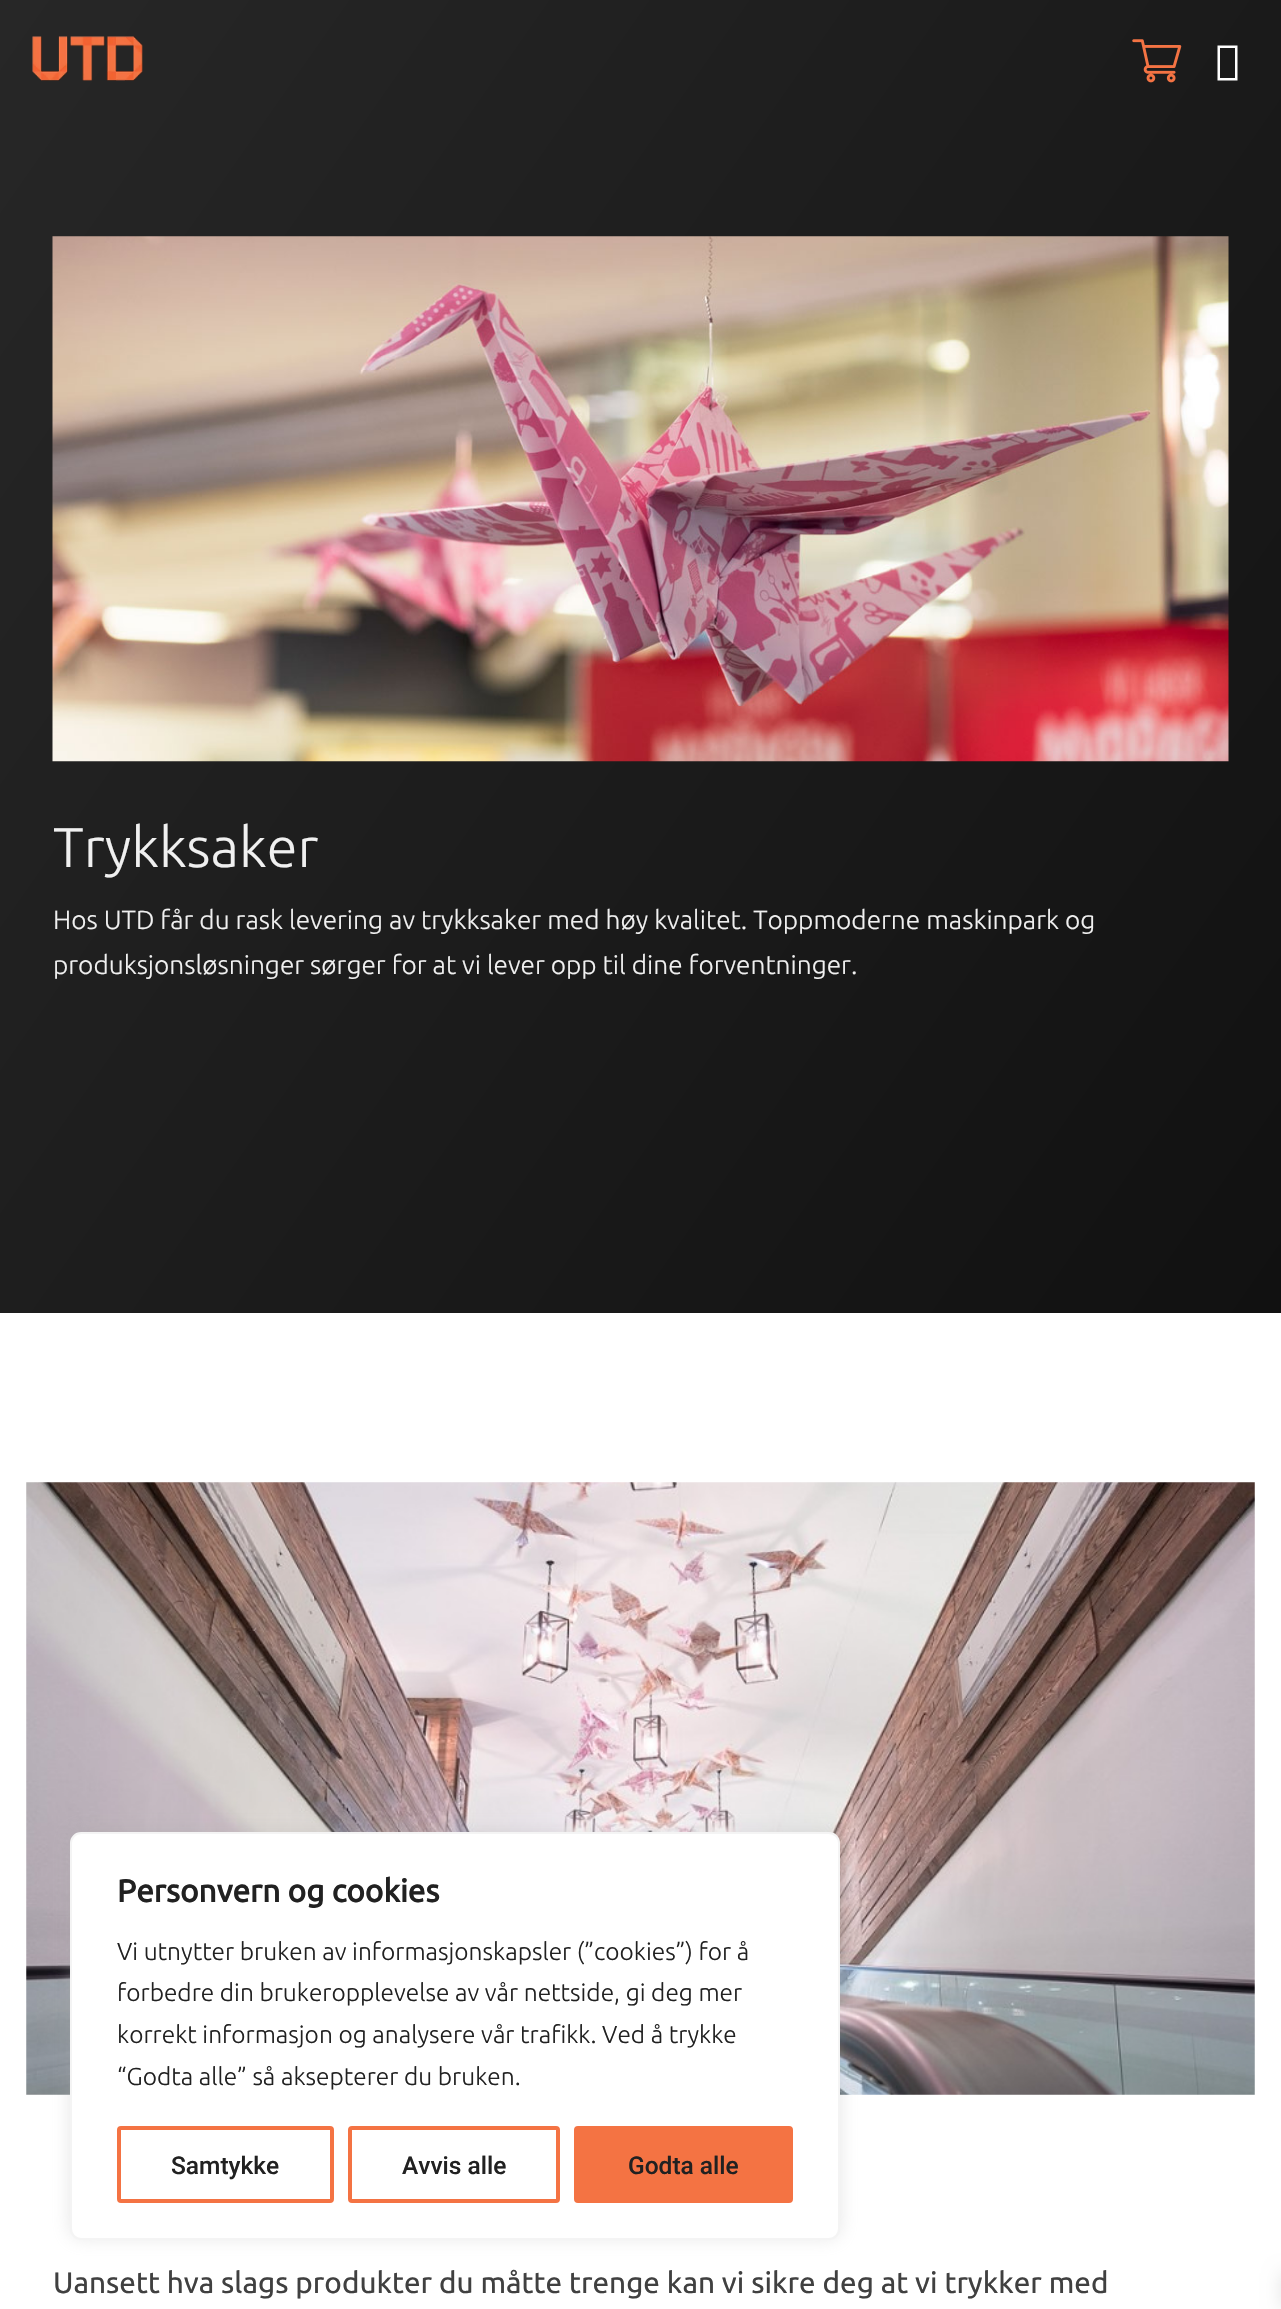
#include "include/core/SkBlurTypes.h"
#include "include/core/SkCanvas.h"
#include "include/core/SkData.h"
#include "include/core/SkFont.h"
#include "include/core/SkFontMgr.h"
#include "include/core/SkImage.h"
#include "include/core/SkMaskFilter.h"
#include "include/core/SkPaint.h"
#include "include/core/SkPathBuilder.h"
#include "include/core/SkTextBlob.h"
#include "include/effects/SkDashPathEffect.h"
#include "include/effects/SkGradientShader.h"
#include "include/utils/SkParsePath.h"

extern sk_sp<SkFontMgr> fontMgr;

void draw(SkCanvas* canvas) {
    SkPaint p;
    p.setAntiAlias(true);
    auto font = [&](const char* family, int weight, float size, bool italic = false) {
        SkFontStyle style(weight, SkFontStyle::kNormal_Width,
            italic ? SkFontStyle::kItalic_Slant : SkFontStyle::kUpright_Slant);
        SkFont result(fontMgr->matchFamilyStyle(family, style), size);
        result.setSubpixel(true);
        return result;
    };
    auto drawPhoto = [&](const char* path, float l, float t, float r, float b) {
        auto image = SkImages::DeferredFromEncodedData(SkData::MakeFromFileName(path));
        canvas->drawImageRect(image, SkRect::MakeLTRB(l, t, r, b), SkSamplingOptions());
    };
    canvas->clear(0xFFFFFFFF);
    {
        const SkColor colors[] = {0xFF111111, 0xFF272727};
        const float stops[] = {0, 1};
        const SkPoint ends[] = {{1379, 1173}, {-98, 139}};
        p.setShader(SkGradientShader::MakeLinear(ends, colors, stops, 2, SkTileMode::kClamp));
        p.setAlpha(255);
    }
    canvas->drawRect(SkRect::MakeLTRB(0, 0, 1281, 1313), p);
    drawPhoto("media/1.png", 32, 36, 143, 81);
    drawPhoto("media/2.png", 1132, 39, 1182, 83);
    p.setShader(nullptr);
    p.setColor(0xFFFFFFFF);
    canvas->drawPath(SkPathBuilder().moveTo(1217.5f, 80.5f).lineTo(1217.5f, 45.5f).lineTo(1237.5f, 45.5f).lineTo(1237.5f, 80.5f).close().moveTo(1220, 78).lineTo(1235, 78).lineTo(1235, 48).lineTo(1220, 48).close().detach(), p);
    drawPhoto("media/3.png", 52, 236, 1229, 762);
    auto font1 = font("Ubuntu", 300, 56);
    p.setColor(0xFFF0F0F0);
    canvas->drawString("Trykksaker", 53, 867, font1, p);
    auto font2 = font("Ubuntu", 300, 26.25f);
    canvas->drawString("Hos UTD får du rask levering av trykksaker med høy kvalitet. Toppmoderne maskinpark og", 53, 929, font2, p);
    canvas->drawString("produksjonsløsninger sørger for at vi lever opp til dine forventninger.", 53, 974, font2, p);
    drawPhoto("media/4.png", 26, 1482, 1255, 2095);
    auto font3 = font("Ubuntu", 400, 29.75f);
    p.setColor(0xFF404040);
    canvas->drawString("Uansett hva slags produkter du måtte trenge kan vi sikre deg at vi trykker med", 53, 2293, font3, p);
    p.setColor(0x4DACABAB);
    p.setMaskFilter(SkMaskFilter::MakeBlur(kNormal_SkBlurStyle, 9));
    canvas->drawRoundRect(SkRect::MakeLTRB(70, 1831, 840, 2238), 11, 11, p);
    p.setMaskFilter(nullptr);
    p.setColor(0xFFFFFFFF);
    canvas->drawRoundRect(SkRect::MakeLTRB(71, 1833, 839, 2239), 10, 10, p);
    p.setStyle(SkPaint::kStroke_Style);
    p.setStrokeWidth(2);
    p.setColor(0xFFF4F4F4);
    canvas->drawRoundRect(SkRect::MakeLTRB(71, 1833, 839, 2239), 10, 10, p);
    auto font4 = font("Ubuntu", 700, 31.5f);
    p.setStyle(SkPaint::kFill_Style);
    p.setColor(0xFF212121);
    canvas->drawString("Personvern og cookies", 117, 1902, font4, p);
    auto font5 = font("Ubuntu", 300, 24.5f);
    {
        const struct { const char* s; float x, y; } items[] = {
            {"Vi utnytter bruken av informasjonskapsler (”cookies”) for å", 117, 1960},
            {"forbedre din brukeropplevelse av vår nettside, gi deg mer", 117, 2001},
            {"korrekt informasjon og analysere vår trafikk. Ved å trykke", 117, 2043},
            {"“Godta alle” så aksepterer du bruken.", 117, 2085},
        };
        for (auto [s, x, y] : items) {
            canvas->drawString(s, x, y, font5, p);
        }
    }
    p.setStyle(SkPaint::kStroke_Style);
    p.setStrokeWidth(4);
    p.setColor(0xFFF47343);
    canvas->drawRoundRect(SkRect::MakeLTRB(119, 2128, 332, 2201), 2, 2, p);
    auto font6 = font("Roboto", 500, 24.5f);
    p.setStyle(SkPaint::kFill_Style);
    p.setColor(0xFF212121);
    canvas->drawString("Samtykke", 171, 2174, font6, p);
    p.setStyle(SkPaint::kStroke_Style);
    p.setColor(0xFFF47343);
    canvas->drawRoundRect(SkRect::MakeLTRB(350, 2128, 558, 2201), 2, 2, p);
    p.setStyle(SkPaint::kFill_Style);
    p.setColor(0xFF212121);
    canvas->drawString("Avvis alle", 402, 2174, font6, p);
    p.setColor(0xFFF47343);
    canvas->drawRoundRect(SkRect::MakeLTRB(576, 2128, 791, 2201), 2, 2, p);
    p.setStyle(SkPaint::kStroke_Style);
    canvas->drawRoundRect(SkRect::MakeLTRB(576, 2128, 791, 2201), 2, 2, p);
    p.setStyle(SkPaint::kFill_Style);
    p.setColor(0xFF212121);
    canvas->drawString("Godta alle", 628, 2174, font6, p);
    p.setColor(0x1A000000);
    p.setMaskFilter(SkMaskFilter::MakeBlur(kNormal_SkBlurStyle, 9));
    canvas->drawRect(SkRect::MakeLTRB(1281, 2273, 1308, 2308), p);
    p.setMaskFilter(nullptr);
}
